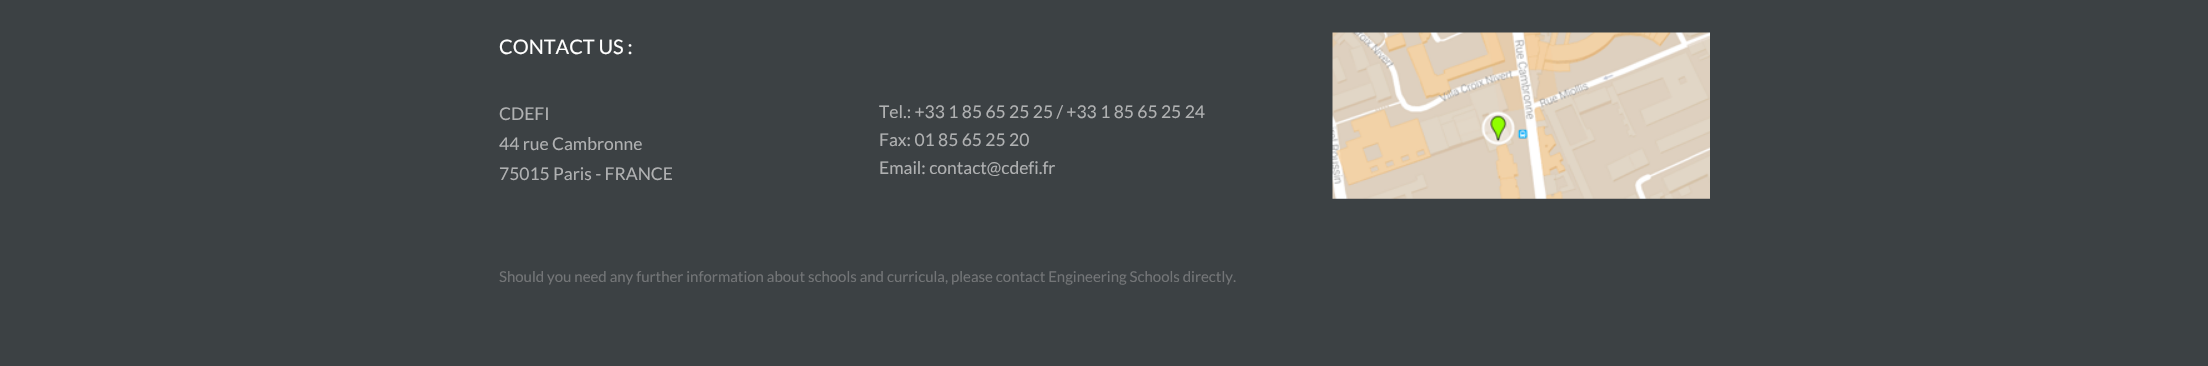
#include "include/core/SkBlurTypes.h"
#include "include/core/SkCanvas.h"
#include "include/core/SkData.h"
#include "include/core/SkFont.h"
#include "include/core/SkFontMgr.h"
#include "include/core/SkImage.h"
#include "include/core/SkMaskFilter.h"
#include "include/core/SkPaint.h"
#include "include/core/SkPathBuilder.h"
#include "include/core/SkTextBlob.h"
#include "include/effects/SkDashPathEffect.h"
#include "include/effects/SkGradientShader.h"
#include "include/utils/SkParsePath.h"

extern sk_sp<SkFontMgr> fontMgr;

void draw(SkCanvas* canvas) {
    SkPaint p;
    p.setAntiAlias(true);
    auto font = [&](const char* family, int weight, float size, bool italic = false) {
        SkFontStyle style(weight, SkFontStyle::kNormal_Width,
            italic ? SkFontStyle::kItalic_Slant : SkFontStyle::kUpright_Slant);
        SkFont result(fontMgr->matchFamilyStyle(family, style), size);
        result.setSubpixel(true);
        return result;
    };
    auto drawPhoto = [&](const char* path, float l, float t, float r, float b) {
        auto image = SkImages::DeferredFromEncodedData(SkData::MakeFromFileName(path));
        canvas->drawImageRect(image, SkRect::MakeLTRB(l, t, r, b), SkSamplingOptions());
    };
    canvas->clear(0xFF3C4144);
    auto font1 = font("Lato", 400, 20);
    p.setColor(0xFFFFFFFF);
    canvas->drawString("CONTACT US :", 499, 54, font1, p);
    auto font2 = font("Lato", 400, 17.5f);
    p.setColor(0xFFB0B1B2);
    {
        const struct { const char* s; float x, y; } items[] = {
            {"CDEFI", 499, 120},
            {"44 rue Cambronne", 499, 150},
            {"75015 Paris - FRANCE", 499, 180},
            {"Tel.: +33 1 85 65 25 25 / +33 1 85 65 25 24", 879, 118},
            {"Fax: 01 85 65 25 20", 879, 146},
            {"Email: contact@cdefi.fr", 879, 174},
        };
        for (auto [s, x, y] : items) {
            canvas->drawString(s, x, y, font2, p);
        }
    }
    drawPhoto("media/1.png", 1332, 32, 1710, 199);
    auto font3 = font("Lato", 400, 15);
    p.setColor(0xFF737577);
    canvas->drawString("Should you need any further information about schools and curricula, please contact Engineering Schools directly.", 499, 282, font3, p);
}
